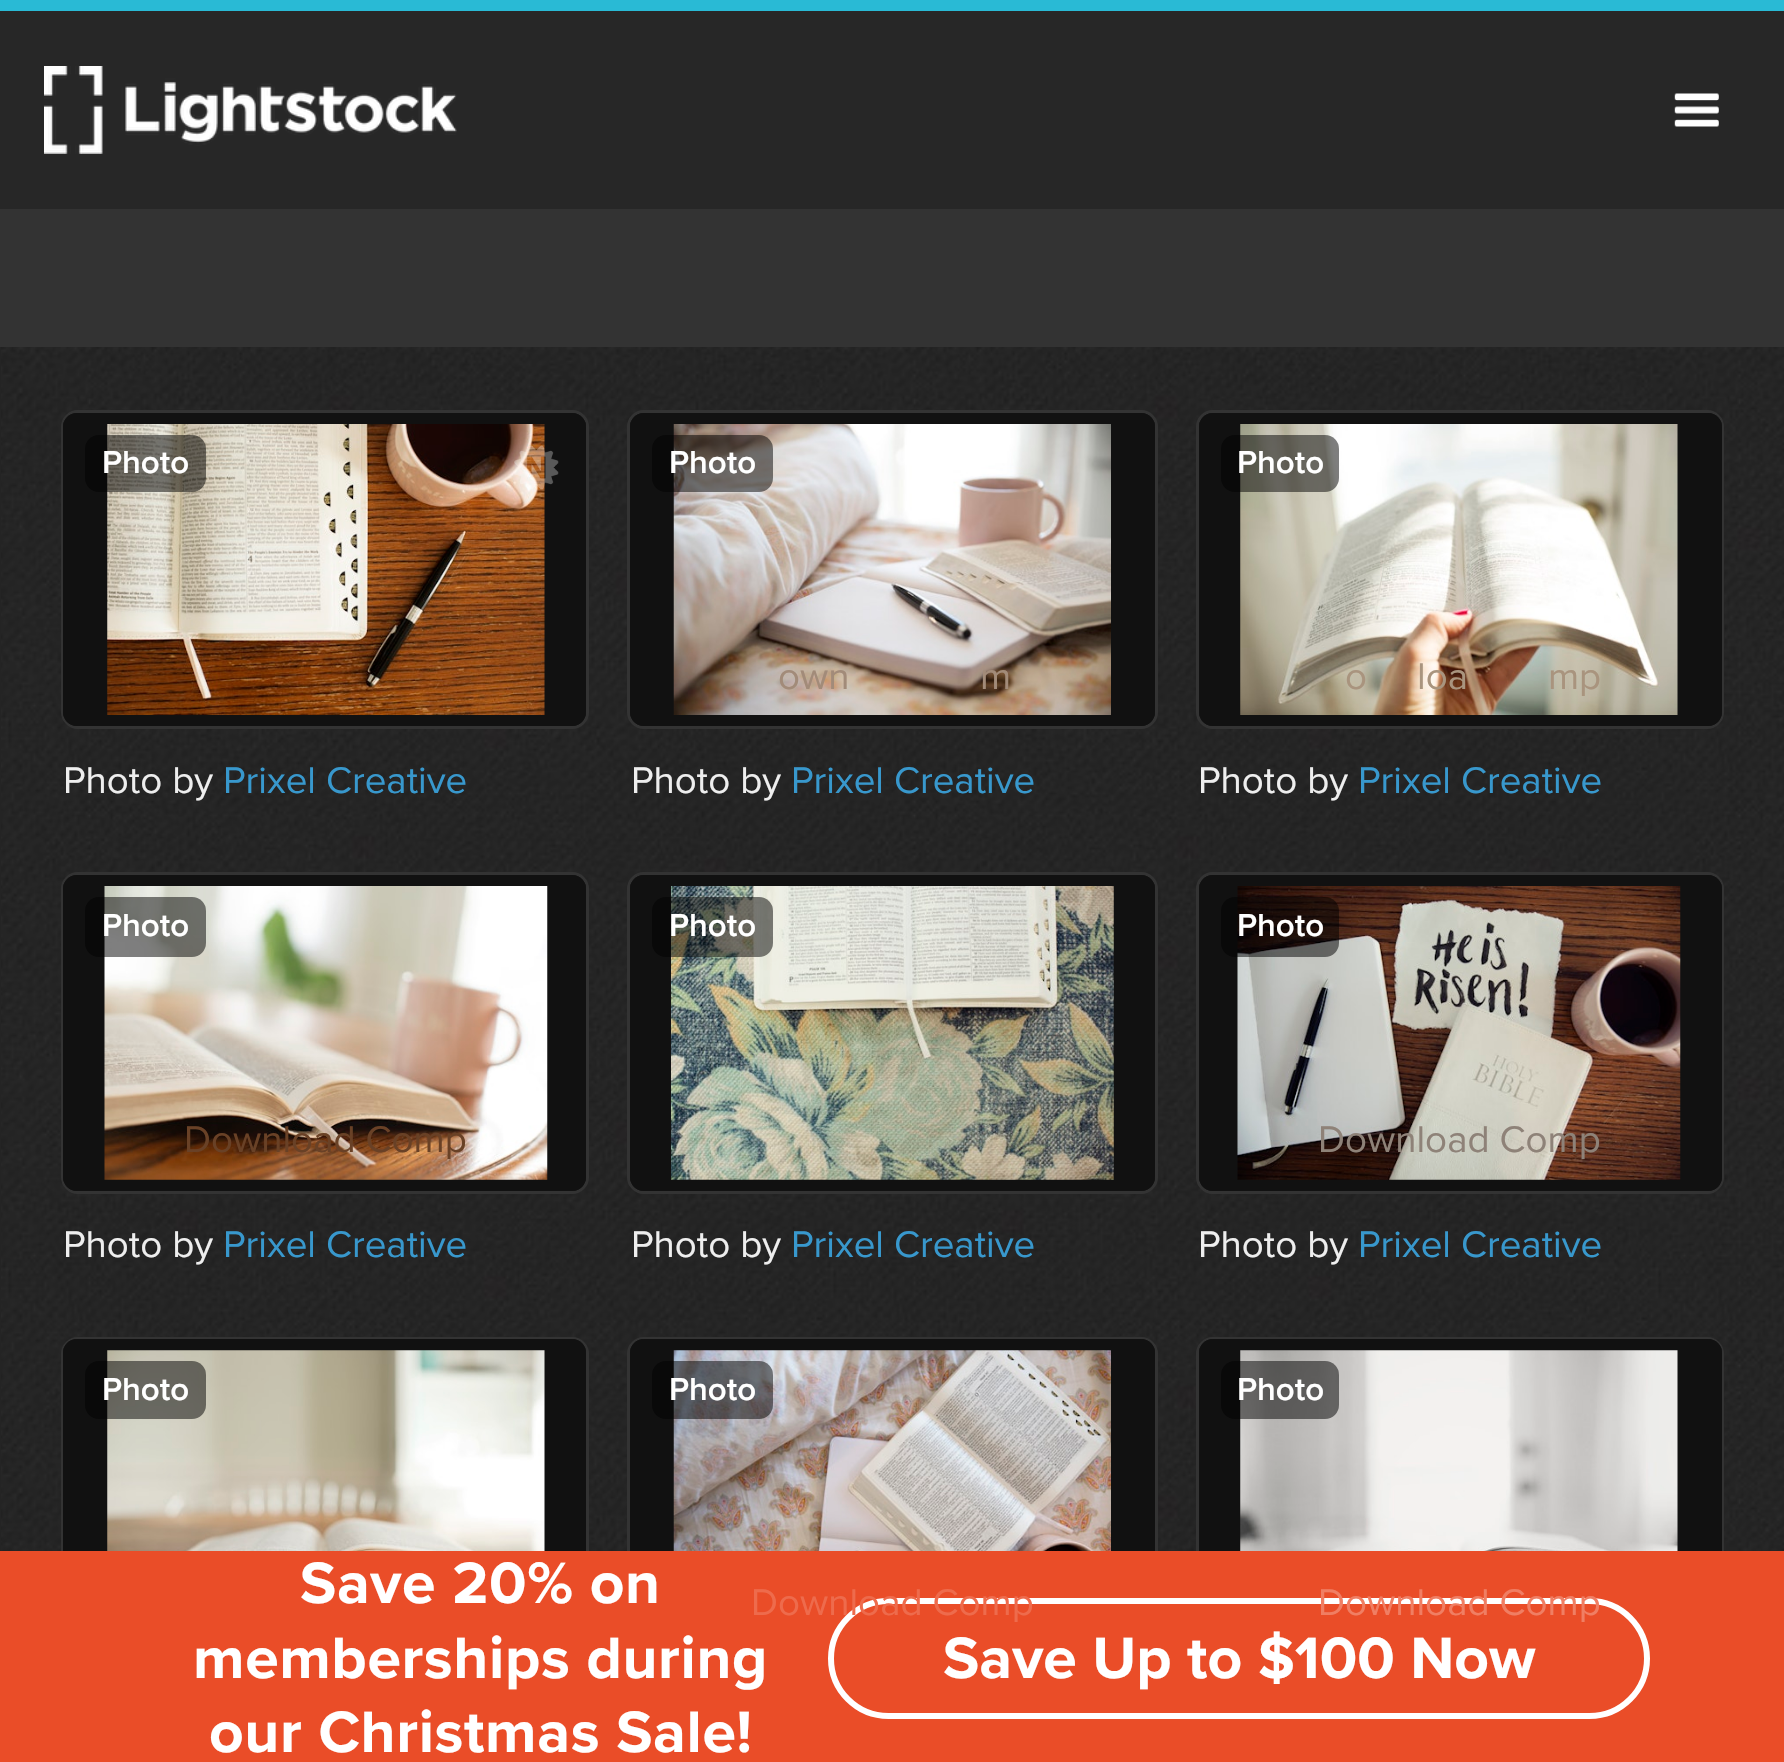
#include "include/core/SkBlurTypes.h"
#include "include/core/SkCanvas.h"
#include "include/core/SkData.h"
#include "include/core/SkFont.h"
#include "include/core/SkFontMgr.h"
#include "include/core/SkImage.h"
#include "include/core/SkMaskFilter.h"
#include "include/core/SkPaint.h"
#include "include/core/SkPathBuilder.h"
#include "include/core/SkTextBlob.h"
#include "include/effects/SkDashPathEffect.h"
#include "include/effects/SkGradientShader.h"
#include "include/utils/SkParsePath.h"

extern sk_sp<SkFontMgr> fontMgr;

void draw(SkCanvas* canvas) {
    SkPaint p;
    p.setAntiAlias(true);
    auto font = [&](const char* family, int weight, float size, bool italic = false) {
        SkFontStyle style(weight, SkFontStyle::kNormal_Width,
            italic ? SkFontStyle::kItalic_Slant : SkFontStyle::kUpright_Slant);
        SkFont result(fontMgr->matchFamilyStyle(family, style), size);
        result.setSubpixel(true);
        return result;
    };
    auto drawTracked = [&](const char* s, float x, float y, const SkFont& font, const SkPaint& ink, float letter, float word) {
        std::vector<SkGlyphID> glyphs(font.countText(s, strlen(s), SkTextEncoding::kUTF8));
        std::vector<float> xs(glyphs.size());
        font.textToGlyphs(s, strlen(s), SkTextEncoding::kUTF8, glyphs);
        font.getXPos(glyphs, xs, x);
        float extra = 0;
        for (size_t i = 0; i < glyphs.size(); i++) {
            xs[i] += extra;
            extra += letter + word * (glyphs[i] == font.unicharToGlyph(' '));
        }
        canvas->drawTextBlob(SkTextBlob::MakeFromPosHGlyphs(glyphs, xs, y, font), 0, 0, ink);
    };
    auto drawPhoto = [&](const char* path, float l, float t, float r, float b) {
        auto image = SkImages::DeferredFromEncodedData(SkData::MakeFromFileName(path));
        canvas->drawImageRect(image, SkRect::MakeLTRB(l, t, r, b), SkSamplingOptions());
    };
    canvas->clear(0xFF242424);
    drawPhoto("media/1.png", 1, 347, 1784, 1551);
    p.setColor(0xFF272727);
    canvas->drawRect(SkRect::MakeLTRB(0, 11, 1784, 209), p);
    p.setColor(0xFF29BAD5);
    canvas->drawRect(SkRect::MakeLTRB(0, 0, 1784, 11), p);
    drawPhoto("media/2.png", 44, 66, 457, 154);
    drawPhoto("media/3.png", 1674, 93, 1719, 127);
    p.setColor(0xFF333333);
    canvas->drawRect(SkRect::MakeLTRB(0, 209, 1784, 347), p);
    p.setStyle(SkPaint::kStroke_Style);
    p.setStrokeWidth(3);
    canvas->drawRoundRect(SkRect::MakeLTRB(62.5f, 411.5f, 587.5f, 727.5f), 15.5f, 15.5f, p);
    p.setStyle(SkPaint::kFill_Style);
    p.setColor(0xFF111111);
    canvas->drawRoundRect(SkRect::MakeLTRB(63, 413, 586, 726), 14, 14, p);
    drawPhoto("media/4.png", 107, 424, 545, 715);
    p.setStyle(SkPaint::kStroke_Style);
    p.setStrokeWidth(11);
    canvas->drawRoundRect(SkRect::MakeLTRB(68.5f, 418.5f, 580.5f, 720.5f), 8.5f, 8.5f, p);
    p.setStyle(SkPaint::kFill_Style);
    p.setColor(0x80000000);
    canvas->drawRoundRect(SkRect::MakeLTRB(85, 435, 206, 492), 14, 14, p);
    auto font1 = font("Proxima Nova", 600, 33);
    p.setColor(0xFFFFFFFF);
    canvas->drawString("Photo", 102, 473, font1, p);
    drawPhoto("media/5.png", 514, 445, 559, 490);
    auto font2 = font("Proxima Nova", 400, 38.5f);
    p.setColor(0xFFEEEEEE);
    canvas->drawString("Photo by", 63, 793, font2, p);
    p.setColor(0xFF3898CD);
    canvas->drawString("Prixel Creative", 223, 793, font2, p);
    p.setStyle(SkPaint::kStroke_Style);
    p.setStrokeWidth(3);
    p.setColor(0xFF333333);
    canvas->drawRoundRect(SkRect::MakeLTRB(628.5f, 411.5f, 1156.5f, 727.5f), 15.5f, 15.5f, p);
    p.setStyle(SkPaint::kFill_Style);
    p.setColor(0xFF111111);
    canvas->drawRoundRect(SkRect::MakeLTRB(630, 413, 1155, 726), 14, 14, p);
    drawPhoto("media/6.png", 673, 424, 1111, 715);
    p.setStyle(SkPaint::kStroke_Style);
    p.setStrokeWidth(11);
    canvas->drawRoundRect(SkRect::MakeLTRB(635.5f, 418.5f, 1149.5f, 720.5f), 8.5f, 8.5f, p);
    p.setStyle(SkPaint::kFill_Style);
    p.setColor(0x80000000);
    canvas->drawRoundRect(SkRect::MakeLTRB(652, 435, 773, 492), 14, 14, p);
    p.setColor(0xFFFFFFFF);
    canvas->drawString("Photo", 669, 473, font1, p);
    p.setColor(0xFFA28B79);
    canvas->drawString("own", 778, 689, font2, p);
    canvas->drawString("m", 980, 689, font2, p);
    p.setColor(0xFFEEEEEE);
    canvas->drawString("Photo by", 631, 793, font2, p);
    p.setColor(0xFF3898CD);
    canvas->drawString("Prixel Creative", 791, 793, font2, p);
    p.setStyle(SkPaint::kStroke_Style);
    p.setStrokeWidth(3);
    p.setColor(0xFF333333);
    canvas->drawRoundRect(SkRect::MakeLTRB(1197.5f, 411.5f, 1722.5f, 727.5f), 15.5f, 15.5f, p);
    p.setStyle(SkPaint::kFill_Style);
    p.setColor(0xFF111111);
    canvas->drawRoundRect(SkRect::MakeLTRB(1199, 413, 1722, 726), 14, 14, p);
    drawPhoto("media/7.png", 1240, 424, 1678, 715);
    p.setStyle(SkPaint::kStroke_Style);
    p.setStrokeWidth(11);
    canvas->drawRoundRect(SkRect::MakeLTRB(1204.5f, 418.5f, 1716.5f, 720.5f), 8.5f, 8.5f, p);
    p.setStyle(SkPaint::kFill_Style);
    p.setColor(0x80000000);
    canvas->drawRoundRect(SkRect::MakeLTRB(1221, 435, 1339, 492), 14, 14, p);
    p.setColor(0xFFFFFFFF);
    canvas->drawString("Photo", 1237, 473, font1, p);
    p.setColor(0xFFA9947E);
    {
        const struct { const char* s; float x, y; } items[] = {
            {"o", 1345, 689},
            {"loa", 1417, 689},
            {"mp", 1548, 689},
        };
        for (auto [s, x, y] : items) {
            canvas->drawString(s, x, y, font2, p);
        }
    }
    p.setColor(0xFFEEEEEE);
    canvas->drawString("Photo by", 1198, 793, font2, p);
    p.setColor(0xFF3898CD);
    canvas->drawString("Prixel Creative", 1358, 793, font2, p);
    p.setStyle(SkPaint::kStroke_Style);
    p.setStrokeWidth(3);
    p.setColor(0xFF333333);
    canvas->drawRoundRect(SkRect::MakeLTRB(62.5f, 873.5f, 587.5f, 1192.5f), 15.5f, 15.5f, p);
    p.setStyle(SkPaint::kFill_Style);
    p.setColor(0xFF111111);
    canvas->drawRoundRect(SkRect::MakeLTRB(63, 875, 586, 1191), 14, 14, p);
    drawPhoto("media/8.png", 104, 886, 548, 1180);
    p.setStyle(SkPaint::kStroke_Style);
    p.setStrokeWidth(11);
    canvas->drawRoundRect(SkRect::MakeLTRB(68.5f, 880.5f, 580.5f, 1185.5f), 8.5f, 8.5f, p);
    p.setStyle(SkPaint::kFill_Style);
    p.setColor(0x80000000);
    canvas->drawRoundRect(SkRect::MakeLTRB(85, 897, 206, 957), 14, 14, p);
    p.setColor(0xFFFFFFFF);
    canvas->drawString("Photo", 102, 936, font1, p);
    p.setColor(0xFF694126);
    canvas->drawString("Download Comp", 184, 1152, font2, p);
    p.setColor(0xFFEEEEEE);
    canvas->drawString("Photo by", 63, 1257, font2, p);
    p.setColor(0xFF3898CD);
    canvas->drawString("Prixel Creative", 223, 1257, font2, p);
    p.setStyle(SkPaint::kStroke_Style);
    p.setStrokeWidth(3);
    p.setColor(0xFF333333);
    canvas->drawRoundRect(SkRect::MakeLTRB(628.5f, 873.5f, 1156.5f, 1192.5f), 15.5f, 15.5f, p);
    p.setStyle(SkPaint::kFill_Style);
    p.setColor(0xFF111111);
    canvas->drawRoundRect(SkRect::MakeLTRB(630, 875, 1155, 1191), 14, 14, p);
    drawPhoto("media/9.png", 671, 886, 1114, 1180);
    p.setStyle(SkPaint::kStroke_Style);
    p.setStrokeWidth(11);
    canvas->drawRoundRect(SkRect::MakeLTRB(635.5f, 880.5f, 1149.5f, 1185.5f), 8.5f, 8.5f, p);
    p.setStyle(SkPaint::kFill_Style);
    p.setColor(0x80000000);
    canvas->drawRoundRect(SkRect::MakeLTRB(652, 897, 773, 957), 14, 14, p);
    p.setColor(0xFFFFFFFF);
    canvas->drawString("Photo", 669, 936, font1, p);
    p.setColor(0xFFEEEEEE);
    canvas->drawString("Photo by", 631, 1257, font2, p);
    p.setColor(0xFF3898CD);
    canvas->drawString("Prixel Creative", 791, 1257, font2, p);
    p.setStyle(SkPaint::kStroke_Style);
    p.setStrokeWidth(3);
    p.setColor(0xFF333333);
    canvas->drawRoundRect(SkRect::MakeLTRB(1197.5f, 873.5f, 1722.5f, 1192.5f), 15.5f, 15.5f, p);
    p.setStyle(SkPaint::kFill_Style);
    p.setColor(0xFF111111);
    canvas->drawRoundRect(SkRect::MakeLTRB(1199, 875, 1722, 1191), 14, 14, p);
    drawPhoto("media/10.png", 1237, 886, 1681, 1180);
    p.setStyle(SkPaint::kStroke_Style);
    p.setStrokeWidth(11);
    canvas->drawRoundRect(SkRect::MakeLTRB(1204.5f, 880.5f, 1716.5f, 1185.5f), 8.5f, 8.5f, p);
    p.setStyle(SkPaint::kFill_Style);
    p.setColor(0x80000000);
    canvas->drawRoundRect(SkRect::MakeLTRB(1221, 897, 1339, 957), 14, 14, p);
    p.setColor(0xFFFFFFFF);
    canvas->drawString("Photo", 1237, 936, font1, p);
    p.setColor(0xFF8E8278);
    canvas->drawString("Download Comp", 1318, 1152, font2, p);
    p.setColor(0xFFEEEEEE);
    canvas->drawString("Photo by", 1198, 1257, font2, p);
    p.setColor(0xFF3898CD);
    canvas->drawString("Prixel Creative", 1358, 1257, font2, p);
    p.setStyle(SkPaint::kStroke_Style);
    p.setStrokeWidth(3);
    p.setColor(0xFF333333);
    canvas->drawRoundRect(SkRect::MakeLTRB(62.5f, 1338.5f, 587.5f, 1654.5f), 15.5f, 15.5f, p);
    p.setStyle(SkPaint::kFill_Style);
    p.setColor(0xFF111111);
    canvas->drawRoundRect(SkRect::MakeLTRB(63, 1339, 586, 1653), 14, 14, p);
    drawPhoto("media/11.png", 107, 1350, 545, 1551);
    p.setStyle(SkPaint::kStroke_Style);
    p.setStrokeWidth(11);
    canvas->drawRoundRect(SkRect::MakeLTRB(68.5f, 1344.5f, 580.5f, 1647.5f), 8.5f, 8.5f, p);
    p.setStyle(SkPaint::kFill_Style);
    p.setColor(0x80000000);
    canvas->drawRoundRect(SkRect::MakeLTRB(85, 1361, 206, 1419), 14, 14, p);
    p.setColor(0xFFFFFFFF);
    canvas->drawString("Photo", 102, 1400, font1, p);
    p.setStyle(SkPaint::kStroke_Style);
    p.setStrokeWidth(3);
    p.setColor(0xFF333333);
    canvas->drawRoundRect(SkRect::MakeLTRB(628.5f, 1338.5f, 1156.5f, 1654.5f), 15.5f, 15.5f, p);
    p.setStyle(SkPaint::kFill_Style);
    p.setColor(0xFF111111);
    canvas->drawRoundRect(SkRect::MakeLTRB(630, 1339, 1155, 1653), 14, 14, p);
    drawPhoto("media/12.png", 673, 1350, 1111, 1551);
    p.setStyle(SkPaint::kStroke_Style);
    p.setStrokeWidth(11);
    canvas->drawRoundRect(SkRect::MakeLTRB(635.5f, 1344.5f, 1149.5f, 1647.5f), 8.5f, 8.5f, p);
    p.setStyle(SkPaint::kFill_Style);
    p.setColor(0x80000000);
    canvas->drawRoundRect(SkRect::MakeLTRB(652, 1361, 773, 1419), 14, 14, p);
    p.setColor(0xFFFFFFFF);
    canvas->drawString("Photo", 669, 1400, font1, p);
    p.setStyle(SkPaint::kStroke_Style);
    p.setStrokeWidth(3);
    p.setColor(0xFF333333);
    canvas->drawRoundRect(SkRect::MakeLTRB(1197.5f, 1338.5f, 1722.5f, 1654.5f), 15.5f, 15.5f, p);
    p.setStyle(SkPaint::kFill_Style);
    p.setColor(0xFF111111);
    canvas->drawRoundRect(SkRect::MakeLTRB(1199, 1339, 1722, 1653), 14, 14, p);
    drawPhoto("media/13.png", 1240, 1350, 1678, 1551);
    p.setStyle(SkPaint::kStroke_Style);
    p.setStrokeWidth(11);
    canvas->drawRoundRect(SkRect::MakeLTRB(1204.5f, 1344.5f, 1716.5f, 1647.5f), 8.5f, 8.5f, p);
    p.setStyle(SkPaint::kFill_Style);
    p.setColor(0xFFEA4D28);
    canvas->drawRect(SkRect::MakeLTRB(0, 1551, 1784, 1762), p);
    p.setStyle(SkPaint::kStroke_Style);
    p.setStrokeWidth(6);
    p.setColor(0xFFFFFFFF);
    canvas->drawRoundRect(SkRect::MakeLTRB(831, 1601, 1647, 1716), 57.5f, 57.5f, p);
    p.setStyle(SkPaint::kFill_Style);
    p.setColor(0xFFEE6B4C);
    canvas->drawString("Download Comp", 751, 1615, font2, p);
    p.setColor(0x80000000);
    canvas->drawRoundRect(SkRect::MakeLTRB(1221, 1361, 1339, 1419), 14, 14, p);
    p.setColor(0xFFFFFFFF);
    canvas->drawString("Photo", 1237, 1400, font1, p);
    p.setColor(0xFFF07E63);
    canvas->drawString("Download Comp", 1318, 1615, font2, p);
    auto font3 = font("Proxima Nova", 700, 60.5f);
    p.setColor(0xFFFFFFFF);
    {
        const struct { const char* s; float x, y; } items[] = {
            {"Save 20% on", 300, 1603},
            {"memberships during", 193, 1678},
            {"our Christmas Sale!", 209, 1752},
        };
        for (auto [s, x, y] : items) {
            drawTracked(s, x, y, font3, p, 0.6f, 0);
        }
    }
    canvas->drawString("Save Up to $100 Now", 943, 1678, font3, p);
}
